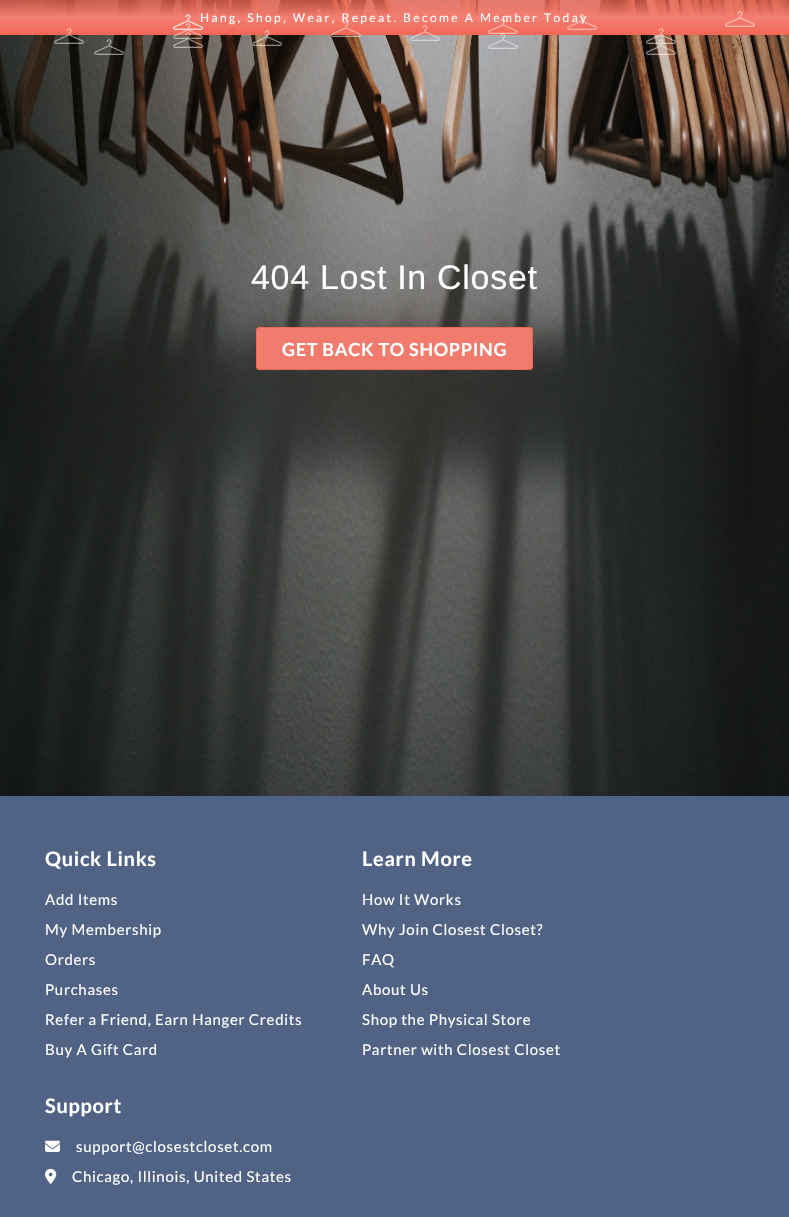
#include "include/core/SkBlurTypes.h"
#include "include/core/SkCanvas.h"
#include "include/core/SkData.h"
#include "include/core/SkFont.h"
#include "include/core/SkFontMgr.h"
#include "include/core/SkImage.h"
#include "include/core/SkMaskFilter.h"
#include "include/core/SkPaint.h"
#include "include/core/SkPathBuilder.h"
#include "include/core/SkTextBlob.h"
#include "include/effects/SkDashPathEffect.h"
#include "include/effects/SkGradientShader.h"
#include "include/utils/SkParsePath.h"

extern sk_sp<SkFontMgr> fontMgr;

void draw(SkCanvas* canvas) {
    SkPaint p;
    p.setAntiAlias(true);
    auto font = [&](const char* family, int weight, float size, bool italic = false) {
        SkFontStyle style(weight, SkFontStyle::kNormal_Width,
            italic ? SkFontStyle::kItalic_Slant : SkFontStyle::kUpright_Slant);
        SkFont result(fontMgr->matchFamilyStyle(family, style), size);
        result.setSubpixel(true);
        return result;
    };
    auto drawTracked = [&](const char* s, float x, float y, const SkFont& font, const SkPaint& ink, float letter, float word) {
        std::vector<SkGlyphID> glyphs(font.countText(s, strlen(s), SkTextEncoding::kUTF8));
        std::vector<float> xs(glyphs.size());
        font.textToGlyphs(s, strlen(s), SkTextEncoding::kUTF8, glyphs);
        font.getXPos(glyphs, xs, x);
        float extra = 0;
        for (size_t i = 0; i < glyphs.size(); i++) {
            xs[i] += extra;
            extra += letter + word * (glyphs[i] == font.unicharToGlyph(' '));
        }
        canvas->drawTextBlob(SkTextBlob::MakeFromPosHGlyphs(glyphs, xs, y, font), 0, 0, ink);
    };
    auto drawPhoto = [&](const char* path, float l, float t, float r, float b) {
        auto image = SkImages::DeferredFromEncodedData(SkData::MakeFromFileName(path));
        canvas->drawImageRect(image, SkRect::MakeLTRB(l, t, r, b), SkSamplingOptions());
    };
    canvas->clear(0xFF506385);
    drawPhoto("media/16.png", 0, 0, 789, 796);
    auto font1 = font("Lato", 400, 12);
    p.setColor(0xFFFFFFFF);
    drawTracked("Hang, Shop, Wear, Repeat. Become A Member Today", 200, 22, font1, p, 2.4f, 0);
    drawPhoto("media/1.png", 173, 14, 203, 30);
    drawPhoto("media/2.png", 725, 11, 755, 27);
    drawPhoto("media/13.png", 173, 32, 203, 48);
    drawPhoto("media/8.png", 173, 23, 203, 39);
    drawPhoto("media/3.png", 173, 14, 203, 30);
    drawPhoto("media/4.png", 331, 21, 361, 37);
    drawPhoto("media/5.png", 488, 18, 518, 34);
    drawPhoto("media/6.png", 567, 14, 597, 30);
    drawPhoto("media/7.png", 54, 28, 84, 44);
    drawPhoto("media/9.png", 252, 30, 282, 46);
    drawPhoto("media/10.png", 410, 25, 440, 41);
    drawPhoto("media/11.png", 646, 28, 676, 44);
    drawPhoto("media/12.png", 94, 39, 124, 55);
    drawPhoto("media/14.png", 488, 33, 518, 49);
    drawPhoto("media/15.png", 646, 39, 676, 55);
    auto font2 = font("Liberation Sans", 400, 34);
    drawTracked("404 Lost In Closet", 251, 289, font2, p, 0.7f, 0);
    p.setColor(0xFFF17C6D);
    canvas->drawRoundRect(SkRect::MakeLTRB(256.5f, 327.5f, 532.5f, 369.5f), 2.5f, 2.5f, p);
    p.setStyle(SkPaint::kStroke_Style);
    p.setStrokeWidth(1);
    p.setColor(0xFFF26654);
    canvas->drawRoundRect(SkRect::MakeLTRB(256.5f, 327.5f, 532.5f, 369.5f), 2.5f, 2.5f, p);
    auto font3 = font("Lato", 700, 18);
    p.setStyle(SkPaint::kFill_Style);
    p.setColor(0xFFFFFFFF);
    drawTracked("GET BACK TO SHOPPING", 282, 356, font3, p, 0.7f, 0);
    auto font4 = font("Lato", 700, 20);
    drawTracked("Quick Links", 45, 866, font4, p, 0.7f, 0);
    auto font5 = font("Lato", 400, 15);
    {
        const struct { const char* s; float x, y; } items[] = {
            {"Add Items", 45, 905},
            {"My Membership", 45, 935},
            {"Orders", 45, 965},
            {"Purchases", 45, 995},
            {"Refer a Friend, Earn Hanger Credits", 45, 1025},
            {"Buy A Gift Card", 45, 1055},
        };
        for (auto [s, x, y] : items) {
            drawTracked(s, x, y, font5, p, 0.7f, 0);
        }
    }
    drawTracked("Learn More", 362, 866, font4, p, 0.7f, 0);
    {
        const struct { const char* s; float x, y; } items[] = {
            {"How It Works", 362, 905},
            {"Why Join Closest Closet?", 362, 935},
            {"FAQ", 362, 965},
            {"About Us", 362, 995},
            {"Shop the Physical Store", 362, 1025},
            {"Partner with Closest Closet", 362, 1055},
        };
        for (auto [s, x, y] : items) {
            drawTracked(s, x, y, font5, p, 0.7f, 0);
        }
    }
    drawTracked("Support", 45, 1113, font4, p, 0.7f, 0);
    drawPhoto("media/17.png", 45, 1140, 60, 1152);
    drawTracked("support@closestcloset.com", 76, 1152, font5, p, 0.7f, 0);
    drawPhoto("media/18.png", 45, 1168, 57, 1184);
    drawTracked("Chicago, Illinois, United States", 72, 1182, font5, p, 0.7f, 0);
}
